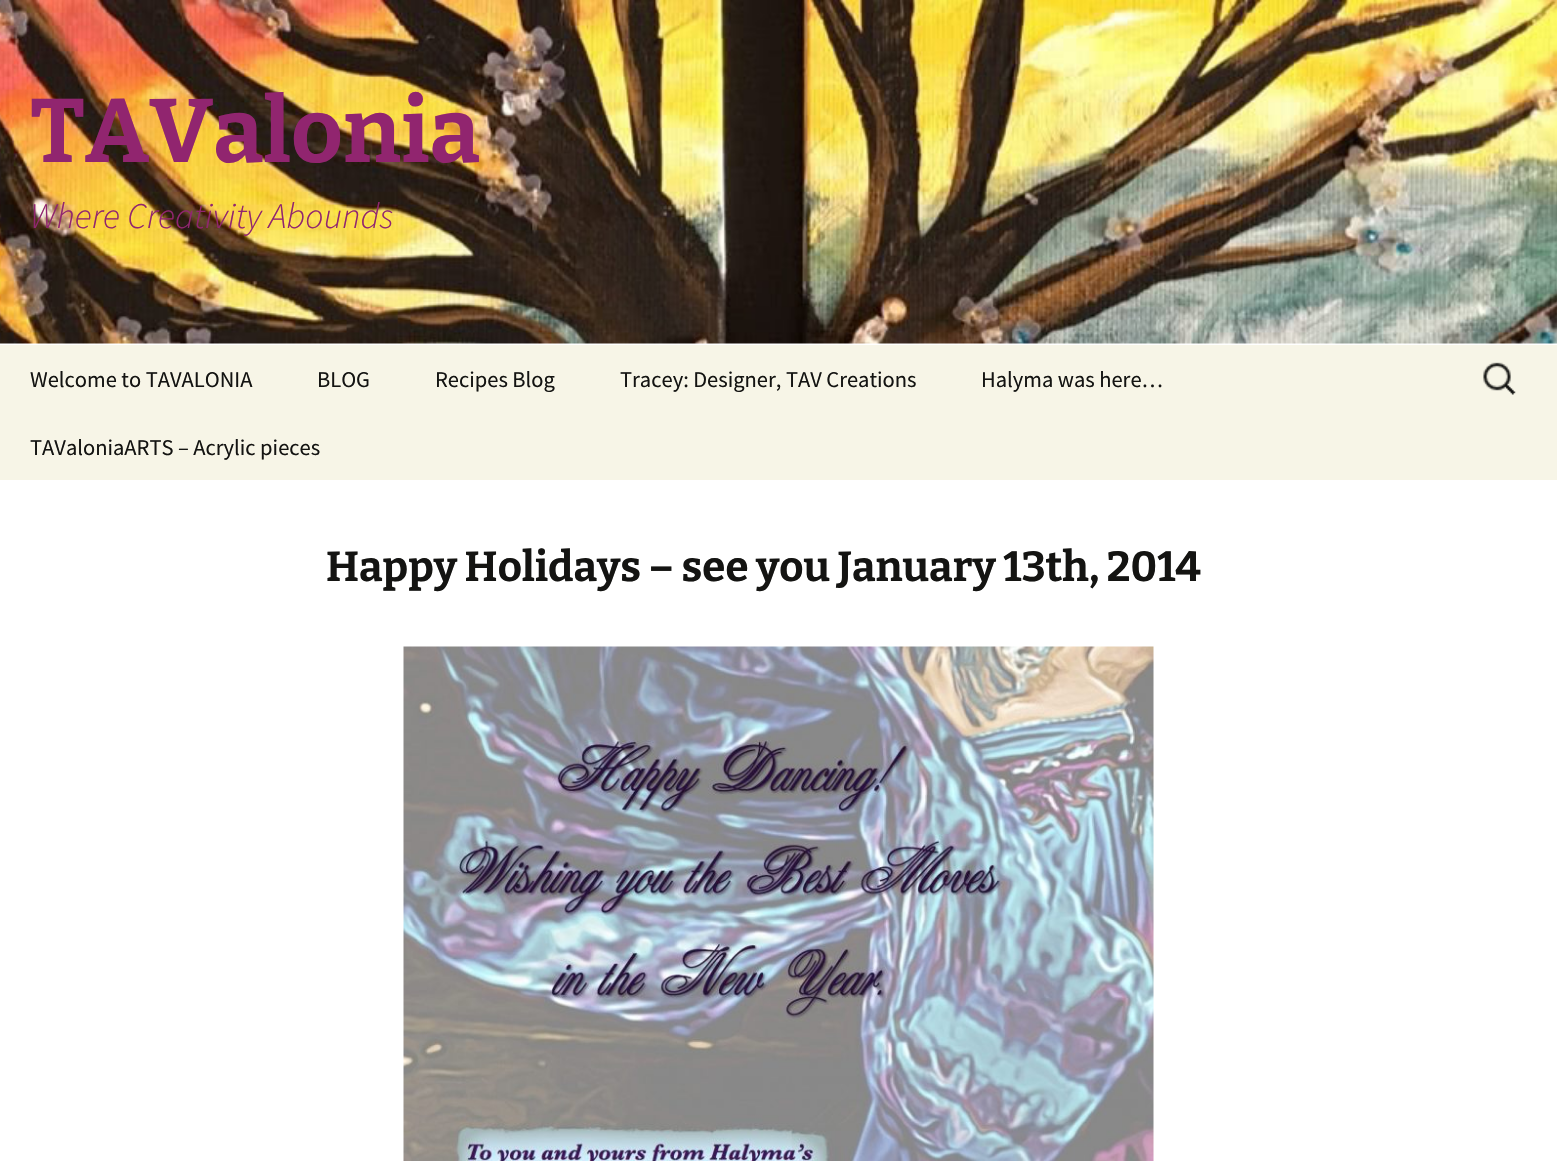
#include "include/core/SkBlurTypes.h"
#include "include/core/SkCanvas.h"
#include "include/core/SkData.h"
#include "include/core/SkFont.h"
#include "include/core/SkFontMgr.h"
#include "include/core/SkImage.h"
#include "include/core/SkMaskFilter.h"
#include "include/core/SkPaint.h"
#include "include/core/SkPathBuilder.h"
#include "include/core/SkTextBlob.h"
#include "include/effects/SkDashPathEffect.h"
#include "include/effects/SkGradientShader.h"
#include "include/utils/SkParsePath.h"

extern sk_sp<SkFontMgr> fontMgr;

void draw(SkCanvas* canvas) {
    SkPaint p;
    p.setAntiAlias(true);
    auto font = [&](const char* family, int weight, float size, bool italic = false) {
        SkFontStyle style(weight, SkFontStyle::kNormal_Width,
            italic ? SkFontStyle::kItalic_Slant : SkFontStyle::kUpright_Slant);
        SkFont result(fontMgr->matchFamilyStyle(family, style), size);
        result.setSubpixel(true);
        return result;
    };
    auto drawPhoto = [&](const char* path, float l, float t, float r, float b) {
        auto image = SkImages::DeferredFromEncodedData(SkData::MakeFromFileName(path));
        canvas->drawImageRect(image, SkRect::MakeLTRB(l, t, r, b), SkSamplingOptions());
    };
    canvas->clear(0xFFFFFFFF);
    drawPhoto("media/1.png", 0, 0, 1557, 344);
    auto font1 = font("Bitter", 100, 90);
    p.setColor(0xFF91256F);
    canvas->drawString("TAValonia", 30, 162, font1, p);
    auto font2 = font("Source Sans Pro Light", 300, 36, true);
    canvas->drawString("Where Creativity Abounds", 30, 228, font2, p);
    p.setColor(0xFFF7F5E7);
    canvas->drawRect(SkRect::MakeLTRB(0, 345, 1557, 480), p);
    auto font3 = font("Source Sans Pro", 400, 22.5f);
    p.setColor(0xFF141412);
    {
        const struct { const char* s; float x, y; } items[] = {
            {"Welcome to TAVALONIA", 30, 387},
            {"BLOG", 317, 387},
            {"Recipes Blog", 435, 387},
            {"Tracey: Designer, TAV Creations", 620, 387},
            {"Halyma was here…", 981, 387},
            {"TAValoniaARTS – Acrylic pieces", 30, 455},
        };
        for (auto [s, x, y] : items) {
            canvas->drawString(s, x, y, font3, p);
        }
    }
    drawPhoto("media/2.png", 1483, 362, 1516, 395);
    auto font4 = font("Bitter", 100, 42);
    canvas->drawString("Happy Holidays – see you January 13th, 2014", 326, 581, font4, p);
    drawPhoto("media/3.png", 403, 646, 1154, 1161);
}
